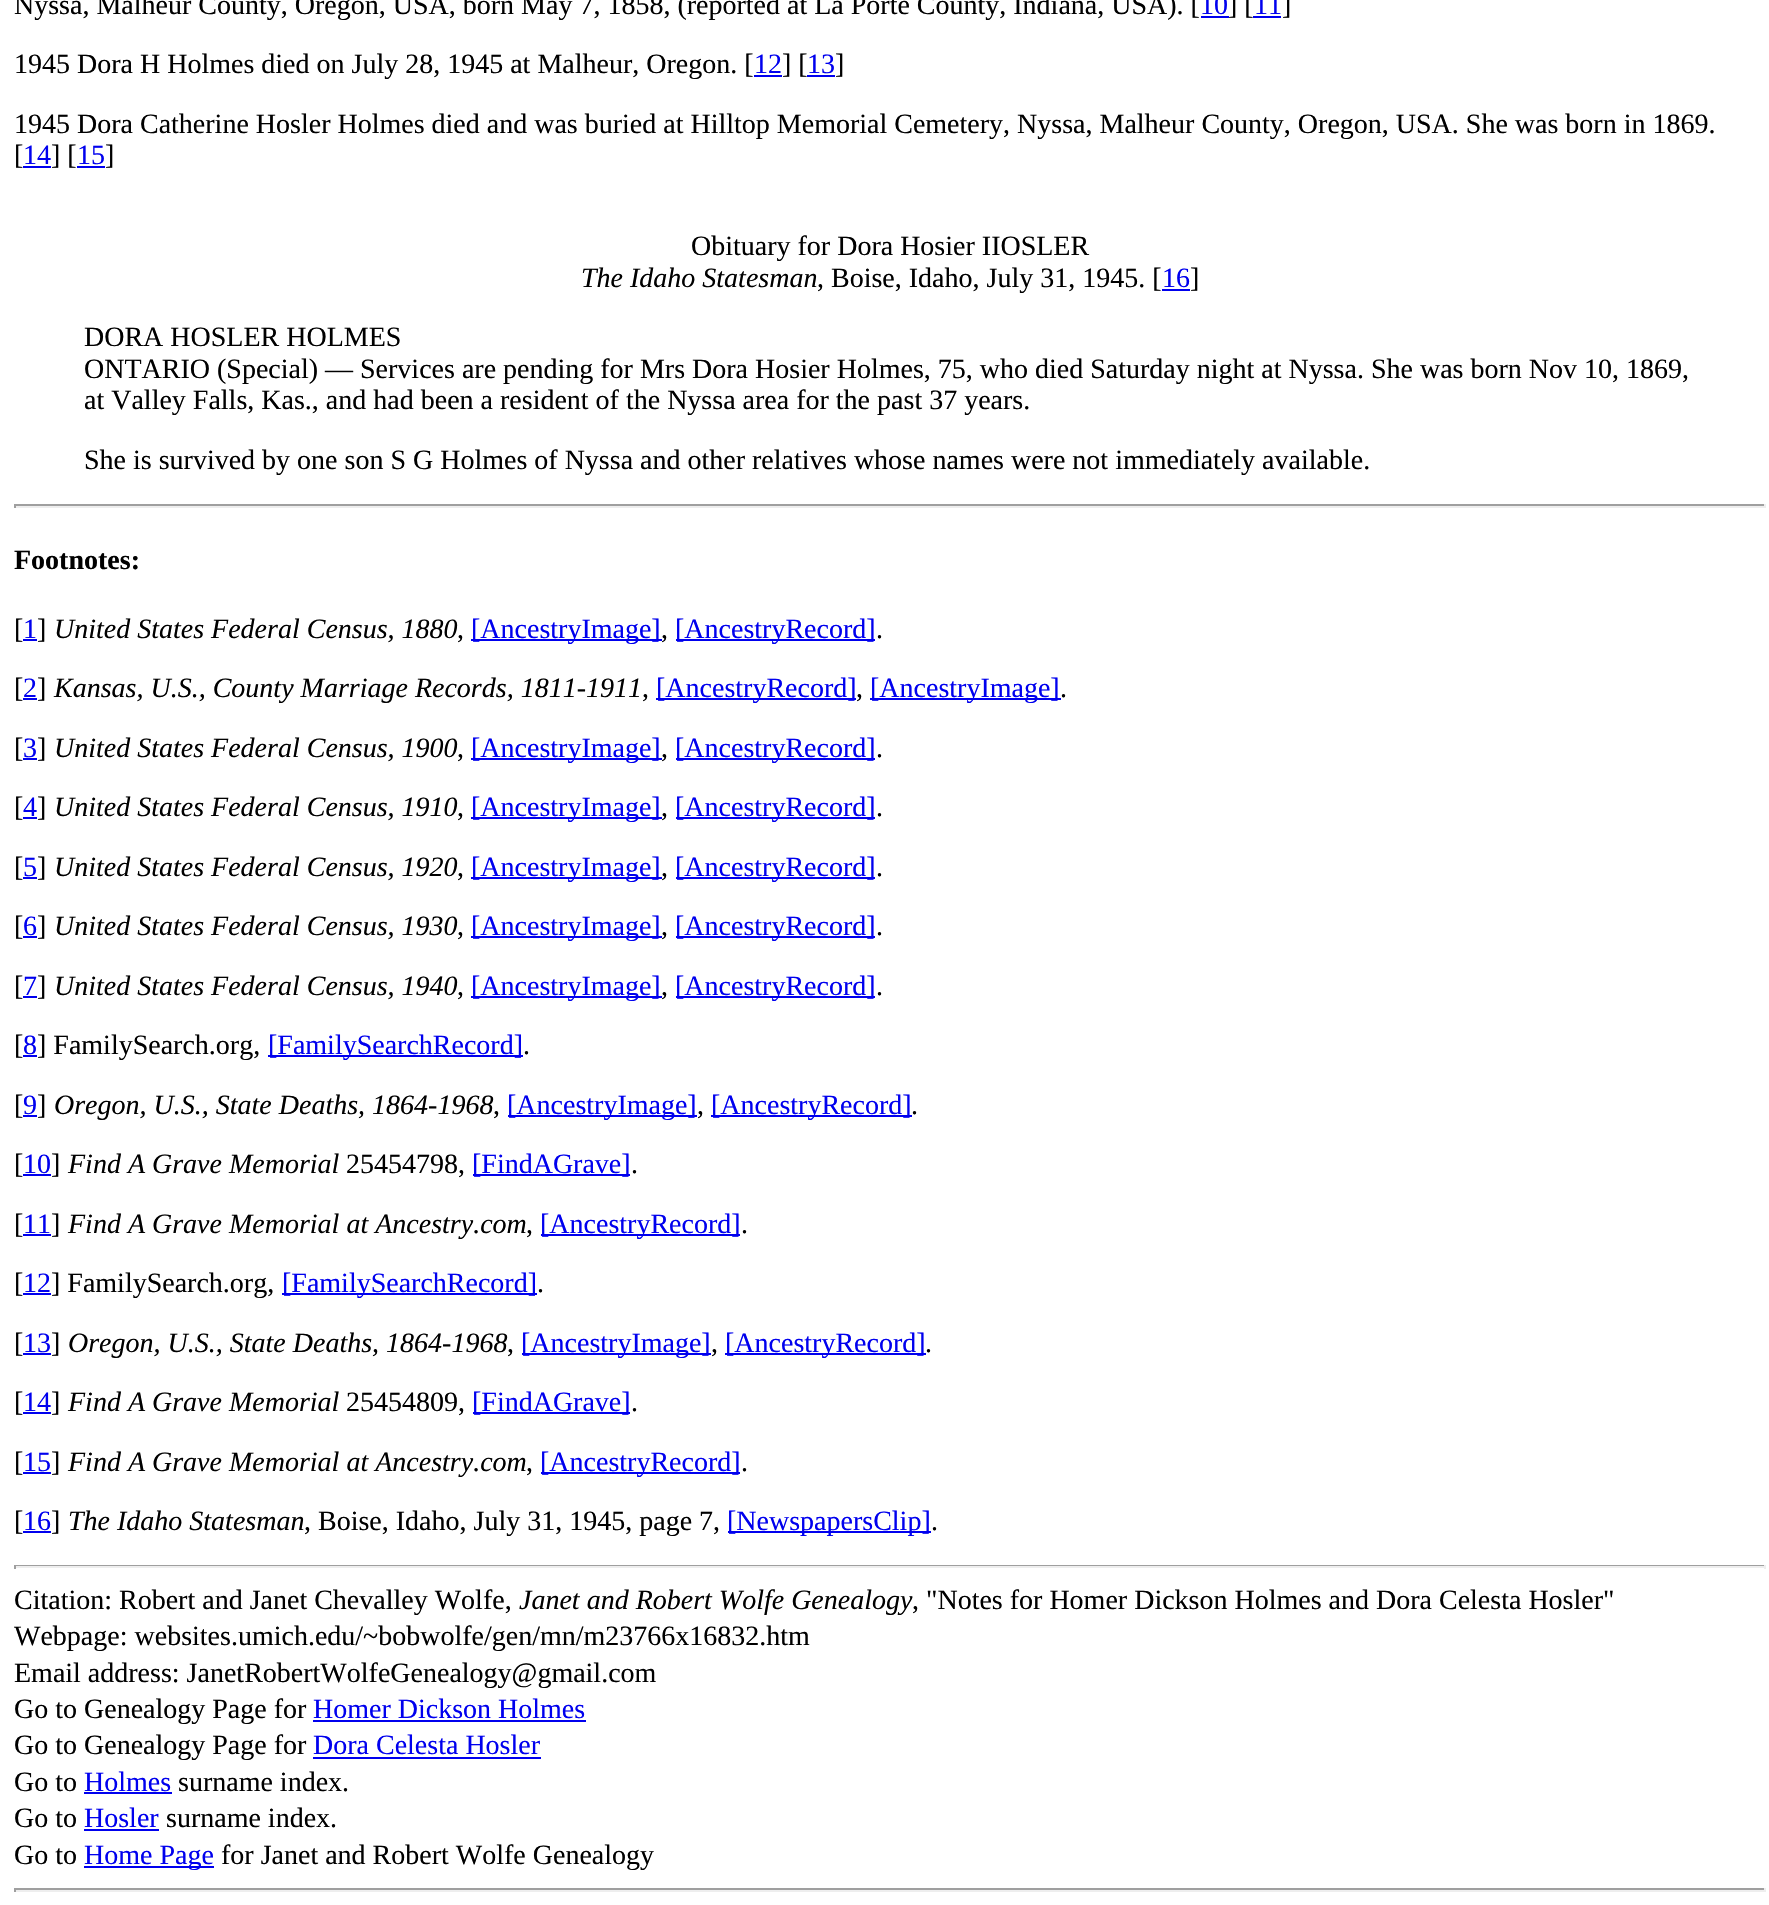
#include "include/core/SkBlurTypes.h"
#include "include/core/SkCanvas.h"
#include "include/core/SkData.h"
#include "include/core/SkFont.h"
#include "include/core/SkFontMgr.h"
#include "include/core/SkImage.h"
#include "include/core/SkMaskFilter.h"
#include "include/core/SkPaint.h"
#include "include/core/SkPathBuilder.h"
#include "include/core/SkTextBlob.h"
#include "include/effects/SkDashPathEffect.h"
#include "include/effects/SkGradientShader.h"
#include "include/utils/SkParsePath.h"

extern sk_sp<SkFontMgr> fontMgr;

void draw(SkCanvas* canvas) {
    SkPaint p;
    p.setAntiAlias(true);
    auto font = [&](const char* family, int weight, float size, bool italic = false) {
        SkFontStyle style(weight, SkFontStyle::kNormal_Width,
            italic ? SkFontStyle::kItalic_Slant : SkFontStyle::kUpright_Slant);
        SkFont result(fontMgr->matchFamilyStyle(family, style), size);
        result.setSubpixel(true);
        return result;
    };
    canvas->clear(0xFFFFFFFF);
    auto font1 = font("Liberation Serif", 400, 28);
    p.setColor(0xFF000000);
    canvas->drawString("Nyssa, Malheur County, Oregon, USA, born May 7, 1858, (reported at La Porte County, Indiana, USA). [", 14, 14, font1, p);
    p.setColor(0xFF0000EE);
    canvas->drawString("10", 1200, 14, font1, p);
    canvas->drawRect(SkRect::MakeLTRB(1201, 16, 1229, 18), p);
    p.setColor(0xFF000000);
    canvas->drawString("] [", 1228, 14, font1, p);
    p.setColor(0xFF0000EE);
    canvas->drawString("11", 1254, 14, font1, p);
    canvas->drawRect(SkRect::MakeLTRB(1253, 16, 1281, 18), p);
    p.setColor(0xFF000000);
    canvas->drawString("]", 1282, 14, font1, p);
    canvas->drawString("1945 Dora H Holmes died on July 28, 1945 at Malheur, Oregon. [", 14, 73, font1, p);
    p.setColor(0xFF0000EE);
    canvas->drawString("12", 754, 73, font1, p);
    canvas->drawRect(SkRect::MakeLTRB(754, 75, 782, 77), p);
    p.setColor(0xFF000000);
    canvas->drawString("] [", 782, 73, font1, p);
    p.setColor(0xFF0000EE);
    canvas->drawString("13", 807, 73, font1, p);
    canvas->drawRect(SkRect::MakeLTRB(807, 75, 835, 77), p);
    p.setColor(0xFF000000);
    {
        const struct { const char* s; float x, y; } items[] = {
            {"]", 835, 73},
            {"1945 Dora Catherine Hosler Holmes died and was buried at Hilltop Memorial Cemetery, Nyssa, Malheur County, Oregon, USA. She was born in 1869.", 14, 133},
            {"[", 14, 164},
        };
        for (auto [s, x, y] : items) {
            canvas->drawString(s, x, y, font1, p);
        }
    }
    p.setColor(0xFF0000EE);
    canvas->drawString("14", 23, 164, font1, p);
    canvas->drawRect(SkRect::MakeLTRB(23, 166, 51, 168), p);
    p.setColor(0xFF000000);
    canvas->drawString("] [", 51, 164, font1, p);
    p.setColor(0xFF0000EE);
    canvas->drawString("15", 77, 164, font1, p);
    canvas->drawRect(SkRect::MakeLTRB(77, 166, 105, 168), p);
    p.setColor(0xFF000000);
    canvas->drawString("]", 105, 164, font1, p);
    canvas->drawString("Obituary for Dora Hosier IIOSLER", 691, 255, font1, p);
    auto font2 = font("Liberation Serif", 400, 28, true);
    canvas->drawString("The Idaho Statesman", 581, 287, font2, p);
    canvas->drawString(", Boise, Idaho, July 31, 1945. [", 817, 287, font1, p);
    p.setColor(0xFF0000EE);
    canvas->drawString("16", 1162, 287, font1, p);
    canvas->drawRect(SkRect::MakeLTRB(1162, 289, 1190, 291), p);
    p.setColor(0xFF000000);
    {
        const struct { const char* s; float x, y; } items[] = {
            {"]", 1190, 287},
            {"DORA HOSLER HOLMES", 84, 346},
            {"ONTARIO (Special) — Services are pending for Mrs Dora Hosier Holmes, 75, who died Saturday night at Nyssa. She was born Nov 10, 1869,", 84, 378},
            {"at Valley Falls, Kas., and had been a resident of the Nyssa area for the past 37 years.", 84, 409},
            {"She is survived by one son S G Holmes of Nyssa and other relatives whose names were not immediately available.", 84, 469},
        };
        for (auto [s, x, y] : items) {
            canvas->drawString(s, x, y, font1, p);
        }
    }
    {
        const struct { float l, t, r, b; SkColor color; } items[] = {
            {14, 504, 1766, 506, 0xFF9F9F9F},
            {1764, 504, 1766, 508, 0xFFEEEEEE},
            {14, 506, 1766, 508, 0xFFEEEEEE},
            {14, 504, 16, 508, 0xFF9F9F9F},
        };
        for (auto [l, t, r, b, color] : items) {
            p.setColor(color);
            canvas->drawRect(SkRect::MakeLTRB(l, t, r, b), p);
        }
    }
    auto font3 = font("Liberation Serif", 700, 28);
    p.setColor(0xFF000000);
    canvas->drawString("Footnotes:", 14, 569, font3, p);
    canvas->drawString("[", 14, 638, font1, p);
    p.setColor(0xFF0000EE);
    canvas->drawString("1", 23, 638, font1, p);
    canvas->drawRect(SkRect::MakeLTRB(23, 639, 37, 641), p);
    p.setColor(0xFF000000);
    canvas->drawString("]", 37, 638, font1, p);
    canvas->drawString("United States Federal Census, 1880", 54, 638, font2, p);
    p.setColor(0xFF0000EE);
    canvas->drawRect(SkRect::MakeLTRB(471, 639, 662, 641), p);
    canvas->drawString("[AncestryImage]", 471, 638, font1, p);
    canvas->drawRect(SkRect::MakeLTRB(676, 639, 875, 641), p);
    canvas->drawString("[AncestryRecord]", 675, 638, font1, p);
    p.setColor(0xFF000000);
    {
        const struct { const char* s; float x, y; } items[] = {
            {",", 457, 638},
            {",", 661, 638},
            {".", 876, 638},
            {"[", 14, 697},
        };
        for (auto [s, x, y] : items) {
            canvas->drawString(s, x, y, font1, p);
        }
    }
    p.setColor(0xFF0000EE);
    canvas->drawString("2", 23, 697, font1, p);
    canvas->drawRect(SkRect::MakeLTRB(23, 698, 37, 700), p);
    p.setColor(0xFF000000);
    canvas->drawString("]", 37, 697, font1, p);
    canvas->drawString("Kansas, U.S., County Marriage Records, 1811-1911", 54, 697, font2, p);
    p.setColor(0xFF0000EE);
    canvas->drawRect(SkRect::MakeLTRB(656, 698, 856, 700), p);
    canvas->drawString("[AncestryRecord]", 656, 697, font1, p);
    canvas->drawRect(SkRect::MakeLTRB(870, 698, 1061, 700), p);
    canvas->drawString("[AncestryImage]", 870, 697, font1, p);
    p.setColor(0xFF000000);
    {
        const struct { const char* s; float x, y; } items[] = {
            {",", 642, 697},
            {",", 856, 697},
            {".", 1060, 697},
            {"[", 14, 757},
        };
        for (auto [s, x, y] : items) {
            canvas->drawString(s, x, y, font1, p);
        }
    }
    p.setColor(0xFF0000EE);
    canvas->drawString("3", 23, 757, font1, p);
    canvas->drawRect(SkRect::MakeLTRB(23, 758, 37, 760), p);
    p.setColor(0xFF000000);
    canvas->drawString("]", 37, 757, font1, p);
    canvas->drawString("United States Federal Census, 1900", 54, 757, font2, p);
    canvas->drawString(",", 457, 757, font1, p);
    p.setColor(0xFF0000EE);
    canvas->drawRect(SkRect::MakeLTRB(471, 758, 662, 760), p);
    canvas->drawString("[AncestryImage]", 471, 757, font1, p);
    p.setColor(0xFF000000);
    canvas->drawString(",", 661, 757, font1, p);
    p.setColor(0xFF0000EE);
    canvas->drawRect(SkRect::MakeLTRB(676, 758, 875, 760), p);
    canvas->drawString("[AncestryRecord]", 675, 757, font1, p);
    p.setColor(0xFF000000);
    canvas->drawString(".", 876, 757, font1, p);
    canvas->drawString("[", 14, 816, font1, p);
    p.setColor(0xFF0000EE);
    canvas->drawString("4", 23, 816, font1, p);
    canvas->drawRect(SkRect::MakeLTRB(23, 817, 37, 819), p);
    p.setColor(0xFF000000);
    canvas->drawString("]", 37, 816, font1, p);
    canvas->drawString("United States Federal Census, 1910", 54, 816, font2, p);
    p.setColor(0xFF0000EE);
    canvas->drawRect(SkRect::MakeLTRB(471, 817, 662, 819), p);
    canvas->drawString("[AncestryImage]", 471, 816, font1, p);
    canvas->drawRect(SkRect::MakeLTRB(676, 817, 875, 819), p);
    canvas->drawString("[AncestryRecord]", 675, 816, font1, p);
    p.setColor(0xFF000000);
    {
        const struct { const char* s; float x, y; } items[] = {
            {",", 457, 816},
            {",", 661, 816},
            {".", 876, 816},
            {"[", 14, 876},
        };
        for (auto [s, x, y] : items) {
            canvas->drawString(s, x, y, font1, p);
        }
    }
    p.setColor(0xFF0000EE);
    canvas->drawString("5", 23, 876, font1, p);
    canvas->drawRect(SkRect::MakeLTRB(23, 877, 37, 879), p);
    p.setColor(0xFF000000);
    canvas->drawString("]", 37, 876, font1, p);
    canvas->drawString("United States Federal Census, 1920", 54, 876, font2, p);
    canvas->drawString(",", 457, 876, font1, p);
    p.setColor(0xFF0000EE);
    canvas->drawRect(SkRect::MakeLTRB(471, 877, 662, 879), p);
    canvas->drawString("[AncestryImage]", 471, 876, font1, p);
    p.setColor(0xFF000000);
    canvas->drawString(",", 661, 876, font1, p);
    p.setColor(0xFF0000EE);
    canvas->drawRect(SkRect::MakeLTRB(676, 877, 875, 879), p);
    canvas->drawString("[AncestryRecord]", 675, 876, font1, p);
    p.setColor(0xFF000000);
    canvas->drawString(".", 876, 876, font1, p);
    canvas->drawString("[", 14, 935, font1, p);
    p.setColor(0xFF0000EE);
    canvas->drawString("6", 23, 935, font1, p);
    canvas->drawRect(SkRect::MakeLTRB(23, 936, 37, 938), p);
    p.setColor(0xFF000000);
    canvas->drawString("]", 37, 935, font1, p);
    canvas->drawString("United States Federal Census, 1930", 54, 935, font2, p);
    canvas->drawString(",", 457, 935, font1, p);
    p.setColor(0xFF0000EE);
    canvas->drawRect(SkRect::MakeLTRB(471, 936, 662, 938), p);
    canvas->drawString("[AncestryImage]", 471, 935, font1, p);
    p.setColor(0xFF000000);
    canvas->drawString(",", 661, 935, font1, p);
    p.setColor(0xFF0000EE);
    canvas->drawRect(SkRect::MakeLTRB(676, 936, 875, 938), p);
    canvas->drawString("[AncestryRecord]", 675, 935, font1, p);
    p.setColor(0xFF000000);
    canvas->drawString(".", 876, 935, font1, p);
    canvas->drawString("[", 14, 995, font1, p);
    p.setColor(0xFF0000EE);
    canvas->drawString("7", 23, 995, font1, p);
    canvas->drawRect(SkRect::MakeLTRB(23, 996, 37, 998), p);
    p.setColor(0xFF000000);
    canvas->drawString("]", 37, 995, font1, p);
    canvas->drawString("United States Federal Census, 1940", 54, 995, font2, p);
    p.setColor(0xFF0000EE);
    canvas->drawRect(SkRect::MakeLTRB(471, 996, 662, 998), p);
    canvas->drawString("[AncestryImage]", 471, 995, font1, p);
    canvas->drawRect(SkRect::MakeLTRB(676, 996, 875, 998), p);
    canvas->drawString("[AncestryRecord]", 675, 995, font1, p);
    p.setColor(0xFF000000);
    {
        const struct { const char* s; float x, y; } items[] = {
            {",", 457, 995},
            {",", 661, 995},
            {".", 876, 995},
            {"[", 14, 1054},
        };
        for (auto [s, x, y] : items) {
            canvas->drawString(s, x, y, font1, p);
        }
    }
    p.setColor(0xFF0000EE);
    canvas->drawString("8", 23, 1054, font1, p);
    canvas->drawRect(SkRect::MakeLTRB(23, 1055, 37, 1057), p);
    p.setColor(0xFF000000);
    canvas->drawString("] FamilySearch.org,", 37, 1054, font1, p);
    p.setColor(0xFF0000EE);
    canvas->drawRect(SkRect::MakeLTRB(268, 1055, 523, 1057), p);
    canvas->drawString("[FamilySearchRecord]", 268, 1054, font1, p);
    p.setColor(0xFF000000);
    canvas->drawString(".", 523, 1054, font1, p);
    canvas->drawString("[", 14, 1114, font1, p);
    p.setColor(0xFF0000EE);
    canvas->drawString("9", 23, 1114, font1, p);
    canvas->drawRect(SkRect::MakeLTRB(23, 1115, 37, 1117), p);
    p.setColor(0xFF000000);
    canvas->drawString("]", 37, 1114, font1, p);
    canvas->drawString("Oregon, U.S., State Deaths, 1864-1968", 54, 1114, font2, p);
    canvas->drawString(",", 493, 1114, font1, p);
    p.setColor(0xFF0000EE);
    canvas->drawRect(SkRect::MakeLTRB(508, 1115, 697, 1117), p);
    canvas->drawString("[AncestryImage]", 507, 1114, font1, p);
    p.setColor(0xFF000000);
    canvas->drawString(",", 697, 1114, font1, p);
    p.setColor(0xFF0000EE);
    canvas->drawRect(SkRect::MakeLTRB(711, 1115, 912, 1117), p);
    canvas->drawString("[AncestryRecord]", 711, 1114, font1, p);
    p.setColor(0xFF000000);
    canvas->drawString(".", 911, 1114, font1, p);
    canvas->drawString("[", 14, 1173, font1, p);
    p.setColor(0xFF0000EE);
    canvas->drawString("10", 23, 1173, font1, p);
    canvas->drawRect(SkRect::MakeLTRB(23, 1174, 51, 1176), p);
    p.setColor(0xFF000000);
    canvas->drawString("]", 51, 1173, font1, p);
    canvas->drawString("Find A Grave Memorial", 68, 1173, font2, p);
    canvas->drawString("25454798,", 346, 1173, font1, p);
    p.setColor(0xFF0000EE);
    canvas->drawRect(SkRect::MakeLTRB(473, 1174, 630, 1176), p);
    canvas->drawString("[FindAGrave]", 472, 1173, font1, p);
    p.setColor(0xFF000000);
    canvas->drawString(".", 631, 1173, font1, p);
    canvas->drawString("[", 14, 1233, font1, p);
    p.setColor(0xFF0000EE);
    canvas->drawString("11", 23, 1233, font1, p);
    canvas->drawRect(SkRect::MakeLTRB(23, 1234, 51, 1236), p);
    p.setColor(0xFF000000);
    canvas->drawString("]", 51, 1233, font1, p);
    canvas->drawString("Find A Grave Memorial at Ancestry.com", 68, 1233, font2, p);
    p.setColor(0xFF0000EE);
    canvas->drawRect(SkRect::MakeLTRB(541, 1234, 740, 1236), p);
    canvas->drawString("[AncestryRecord]", 540, 1233, font1, p);
    p.setColor(0xFF000000);
    {
        const struct { const char* s; float x, y; } items[] = {
            {",", 526, 1233},
            {".", 741, 1233},
            {"[", 14, 1292},
        };
        for (auto [s, x, y] : items) {
            canvas->drawString(s, x, y, font1, p);
        }
    }
    p.setColor(0xFF0000EE);
    canvas->drawString("12", 23, 1292, font1, p);
    canvas->drawRect(SkRect::MakeLTRB(23, 1293, 51, 1295), p);
    p.setColor(0xFF000000);
    canvas->drawString("] FamilySearch.org,", 51, 1292, font1, p);
    p.setColor(0xFF0000EE);
    canvas->drawRect(SkRect::MakeLTRB(282, 1293, 537, 1295), p);
    canvas->drawString("[FamilySearchRecord]", 282, 1292, font1, p);
    p.setColor(0xFF000000);
    canvas->drawString(".", 537, 1292, font1, p);
    canvas->drawString("[", 14, 1352, font1, p);
    p.setColor(0xFF0000EE);
    canvas->drawString("13", 23, 1352, font1, p);
    canvas->drawRect(SkRect::MakeLTRB(23, 1353, 51, 1355), p);
    p.setColor(0xFF000000);
    canvas->drawString("]", 51, 1352, font1, p);
    canvas->drawString("Oregon, U.S., State Deaths, 1864-1968", 68, 1352, font2, p);
    canvas->drawString(",", 507, 1352, font1, p);
    p.setColor(0xFF0000EE);
    canvas->drawRect(SkRect::MakeLTRB(522, 1353, 711, 1355), p);
    canvas->drawString("[AncestryImage]", 521, 1352, font1, p);
    p.setColor(0xFF000000);
    canvas->drawString(",", 711, 1352, font1, p);
    p.setColor(0xFF0000EE);
    canvas->drawRect(SkRect::MakeLTRB(725, 1353, 926, 1355), p);
    canvas->drawString("[AncestryRecord]", 725, 1352, font1, p);
    p.setColor(0xFF000000);
    canvas->drawString(".", 925, 1352, font1, p);
    canvas->drawString("[", 14, 1411, font1, p);
    p.setColor(0xFF0000EE);
    canvas->drawString("14", 23, 1411, font1, p);
    canvas->drawRect(SkRect::MakeLTRB(23, 1412, 51, 1414), p);
    p.setColor(0xFF000000);
    canvas->drawString("]", 51, 1411, font1, p);
    canvas->drawString("Find A Grave Memorial", 68, 1411, font2, p);
    canvas->drawString("25454809,", 346, 1411, font1, p);
    p.setColor(0xFF0000EE);
    canvas->drawRect(SkRect::MakeLTRB(473, 1412, 630, 1414), p);
    canvas->drawString("[FindAGrave]", 472, 1411, font1, p);
    p.setColor(0xFF000000);
    canvas->drawString(".", 631, 1411, font1, p);
    canvas->drawString("[", 14, 1471, font1, p);
    p.setColor(0xFF0000EE);
    canvas->drawString("15", 23, 1471, font1, p);
    canvas->drawRect(SkRect::MakeLTRB(23, 1472, 51, 1474), p);
    p.setColor(0xFF000000);
    canvas->drawString("]", 51, 1471, font1, p);
    canvas->drawString("Find A Grave Memorial at Ancestry.com", 68, 1471, font2, p);
    canvas->drawString(",", 526, 1471, font1, p);
    p.setColor(0xFF0000EE);
    canvas->drawRect(SkRect::MakeLTRB(541, 1472, 740, 1474), p);
    canvas->drawString("[AncestryRecord]", 540, 1471, font1, p);
    p.setColor(0xFF000000);
    canvas->drawString(".", 741, 1471, font1, p);
    canvas->drawString("[", 14, 1530, font1, p);
    p.setColor(0xFF0000EE);
    canvas->drawString("16", 23, 1530, font1, p);
    canvas->drawRect(SkRect::MakeLTRB(23, 1531, 51, 1533), p);
    p.setColor(0xFF000000);
    canvas->drawString("]", 51, 1530, font1, p);
    canvas->drawString("The Idaho Statesman", 68, 1530, font2, p);
    canvas->drawString(", Boise, Idaho, July 31, 1945, page 7,", 304, 1530, font1, p);
    p.setColor(0xFF0000EE);
    canvas->drawRect(SkRect::MakeLTRB(728, 1531, 931, 1533), p);
    canvas->drawString("[NewspapersClip]", 727, 1530, font1, p);
    p.setColor(0xFF000000);
    canvas->drawString(".", 931, 1530, font1, p);
    {
        const struct { float l, t, r, b; SkColor color; } items[] = {
            {14, 1565, 1766, 1566, 0xFF9F9F9F},
            {1764, 1565, 1766, 1569, 0xFFEEEEEE},
            {14, 1566, 1766, 1568, 0xFFEEEEEE},
            {14, 1565, 16, 1569, 0xFF9F9F9F},
        };
        for (auto [l, t, r, b, color] : items) {
            p.setColor(color);
            canvas->drawRect(SkRect::MakeLTRB(l, t, r, b), p);
        }
    }
    p.setColor(0xFF000000);
    canvas->drawString("Citation: Robert and Janet Chevalley Wolfe,", 14, 1609, font1, p);
    canvas->drawString("Janet and Robert Wolfe Genealogy", 519, 1609, font2, p);
    {
        const struct { const char* s; float x, y; } items[] = {
            {", \"Notes for Homer Dickson Holmes and Dora Celesta Hosler\"", 912, 1609},
            {"Webpage: websites.umich.edu/~bobwolfe/gen/mn/m23766x16832.htm", 14, 1645},
            {"Email address: JanetRobertWolfeGenealogy@gmail.com", 14, 1682},
            {"Go to Genealogy Page for", 14, 1718},
        };
        for (auto [s, x, y] : items) {
            canvas->drawString(s, x, y, font1, p);
        }
    }
    p.setColor(0xFF0000EE);
    canvas->drawString("Homer Dickson Holmes", 313, 1718, font1, p);
    canvas->drawRect(SkRect::MakeLTRB(313, 1720, 586, 1722), p);
    p.setColor(0xFF000000);
    canvas->drawString("Go to Genealogy Page for", 14, 1754, font1, p);
    p.setColor(0xFF0000EE);
    canvas->drawString("Dora Celesta Hosler", 313, 1754, font1, p);
    canvas->drawRect(SkRect::MakeLTRB(313, 1757, 541, 1759), p);
    p.setColor(0xFF000000);
    canvas->drawString("Go to", 14, 1791, font1, p);
    p.setColor(0xFF0000EE);
    canvas->drawString("Holmes", 84, 1791, font1, p);
    canvas->drawRect(SkRect::MakeLTRB(84, 1792, 172, 1794), p);
    p.setColor(0xFF000000);
    canvas->drawString("surname index.", 178, 1791, font1, p);
    canvas->drawString("Go to", 14, 1827, font1, p);
    p.setColor(0xFF0000EE);
    canvas->drawString("Hosler", 84, 1827, font1, p);
    canvas->drawRect(SkRect::MakeLTRB(84, 1829, 159, 1831), p);
    p.setColor(0xFF000000);
    canvas->drawString("surname index.", 166, 1827, font1, p);
    canvas->drawString("Go to", 14, 1864, font1, p);
    p.setColor(0xFF0000EE);
    canvas->drawRect(SkRect::MakeLTRB(84, 1866, 214, 1868), p);
    canvas->drawString("Home Page", 84, 1864, font1, p);
    p.setColor(0xFF000000);
    canvas->drawString("for Janet and Robert Wolfe Genealogy", 221, 1864, font1, p);
    {
        const struct { float l, t, r, b; SkColor color; } items[] = {
            {14, 1888, 1766, 1890, 0xFF9F9F9F},
            {1764, 1888, 1766, 1892, 0xFFEEEEEE},
            {14, 1890, 1766, 1892, 0xFFEEEEEE},
            {14, 1888, 16, 1892, 0xFF9F9F9F},
        };
        for (auto [l, t, r, b, color] : items) {
            p.setColor(color);
            canvas->drawRect(SkRect::MakeLTRB(l, t, r, b), p);
        }
    }
}
